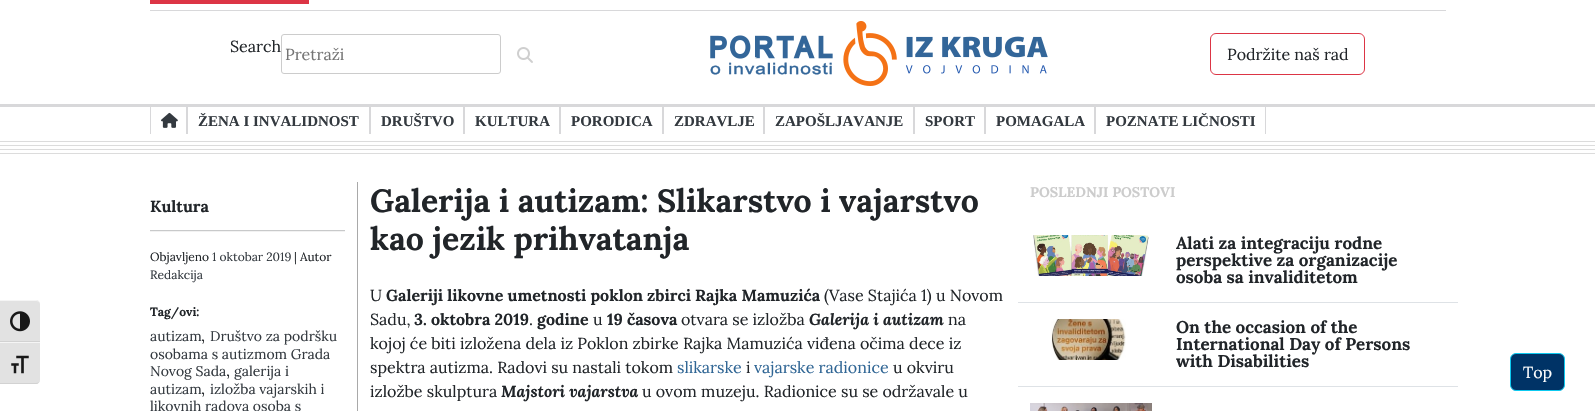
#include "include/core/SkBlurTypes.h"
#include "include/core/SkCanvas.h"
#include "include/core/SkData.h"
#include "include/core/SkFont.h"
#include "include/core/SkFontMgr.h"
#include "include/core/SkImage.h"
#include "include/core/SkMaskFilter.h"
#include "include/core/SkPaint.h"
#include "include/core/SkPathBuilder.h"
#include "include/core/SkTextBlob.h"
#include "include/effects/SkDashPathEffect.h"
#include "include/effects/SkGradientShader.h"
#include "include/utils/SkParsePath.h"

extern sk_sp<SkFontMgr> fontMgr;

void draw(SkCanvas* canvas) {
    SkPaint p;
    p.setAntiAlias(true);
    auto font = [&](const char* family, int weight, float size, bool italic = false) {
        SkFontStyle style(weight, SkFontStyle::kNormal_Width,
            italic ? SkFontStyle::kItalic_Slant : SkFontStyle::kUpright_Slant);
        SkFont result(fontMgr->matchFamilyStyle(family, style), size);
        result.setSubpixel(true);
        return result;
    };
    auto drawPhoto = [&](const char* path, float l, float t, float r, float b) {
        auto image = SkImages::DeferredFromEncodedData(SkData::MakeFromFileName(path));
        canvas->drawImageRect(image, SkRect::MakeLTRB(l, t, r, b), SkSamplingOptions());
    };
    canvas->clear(0xFFFFFFFF);
    p.setColor(0xFFE2E2E2);
    canvas->drawPath(SkPathBuilder().moveTo(0, 300).lineTo(36, 300).cubicTo(38, 300, 40, 302, 40, 304).lineTo(40, 342).lineTo(0, 342).close().detach(), p);
    p.setColor(0xFFF5F5F5);
    canvas->drawPath(SkPathBuilder().moveTo(0, 300).lineTo(0, 301).lineTo(36, 301).cubicTo(38, 301, 40, 302, 40, 304).cubicTo(40, 302, 38, 300, 36, 300).close().detach(), p);
    p.setColor(0xFFD2D2D2);
    canvas->drawRect(SkRect::MakeLTRB(0, 341, 40, 342), p);
    drawPhoto("media/1.png", 10, 311, 30, 332);
    p.setColor(0xFFE2E2E2);
    canvas->drawPath(SkPathBuilder().moveTo(0, 342).lineTo(40, 342).lineTo(40, 380).cubicTo(40, 382, 38, 384, 36, 384).lineTo(0, 384).close().detach(), p);
    p.setColor(0xFFF5F5F5);
    canvas->drawRect(SkRect::MakeLTRB(0, 342, 40, 343), p);
    p.setColor(0xFFD2D2D2);
    canvas->drawPath(SkPathBuilder().moveTo(0, 383).lineTo(0, 384).lineTo(36, 384).cubicTo(38, 384, 40, 382, 40, 380).cubicTo(40, 382, 38, 383, 36, 383).close().detach(), p);
    drawPhoto("media/2.png", 11, 355, 29, 374);
    p.setColor(0xFFD8D8DA);
    canvas->drawRect(SkRect::MakeLTRB(150, 10, 1446, 11), p);
    p.setColor(0xFFDC3545);
    canvas->drawRect(SkRect::MakeLTRB(150, 0, 309, 4), p);
    auto font1 = font("Lora", 400, 16);
    p.setColor(0xFF212529);
    canvas->drawString("Search", 230, 52, font1, p);
    p.setStyle(SkPaint::kStroke_Style);
    p.setStrokeWidth(1);
    p.setColor(0xFFCCCCCC);
    canvas->drawRoundRect(SkRect::MakeLTRB(281.5f, 34.5f, 500.5f, 73.5f), 2.5f, 2.5f, p);
    p.setStyle(SkPaint::kFill_Style);
    p.setColor(0xFF757575);
    canvas->drawString("Pretraži", 285, 60, font1, p);
    drawPhoto("media/3.png", 517, 47, 533, 63);
    drawPhoto("media/4.png", 710, 21, 1048, 86);
    p.setStyle(SkPaint::kStroke_Style);
    p.setColor(0xFFDC3545);
    canvas->drawRoundRect(SkRect::MakeLTRB(1210.5f, 33.5f, 1364.5f, 74.5f), 5.5f, 5.5f, p);
    p.setStyle(SkPaint::kFill_Style);
    p.setColor(0xFF212529);
    canvas->drawString("Podržite naš rad", 1227, 60, font1, p);
    {
        const struct { float l, t, r, b; SkColor color; } items[] = {
            {0, 104, 1595, 107, 0xFFD8D8DA},
            {186, 107, 188, 134, 0xFFD8D8DA},
            {150, 107, 151, 134, 0xFFD8D8DA},
        };
        for (auto [l, t, r, b, color] : items) {
            p.setColor(color);
            canvas->drawRect(SkRect::MakeLTRB(l, t, r, b), p);
        }
    }
    drawPhoto("media/5.png", 161, 112, 178, 128);
    canvas->drawRect(SkRect::MakeLTRB(369, 107, 371, 134), p);
    auto font2 = font("Liberation Serif", 700, 15);
    p.setColor(0xFF343A40);
    canvas->drawString("ŽENA I INVALIDNOST", 198, 126, font2, p);
    p.setColor(0xFFD8D8DA);
    canvas->drawRect(SkRect::MakeLTRB(463, 107, 465, 134), p);
    p.setColor(0xFF343A40);
    canvas->drawString("DRUŠTVO", 381, 126, font2, p);
    p.setColor(0xFFD8D8DA);
    canvas->drawRect(SkRect::MakeLTRB(559, 107, 561, 134), p);
    p.setColor(0xFF343A40);
    canvas->drawString("KULTURA", 475, 126, font2, p);
    p.setColor(0xFFD8D8DA);
    canvas->drawRect(SkRect::MakeLTRB(662, 107, 664, 134), p);
    p.setColor(0xFF343A40);
    canvas->drawString("PORODICA", 571, 126, font2, p);
    p.setColor(0xFFD8D8DA);
    canvas->drawRect(SkRect::MakeLTRB(763, 107, 765, 134), p);
    p.setColor(0xFF343A40);
    canvas->drawString("ZDRAVLJE", 674, 126, font2, p);
    p.setColor(0xFFD8D8DA);
    canvas->drawRect(SkRect::MakeLTRB(913, 107, 915, 134), p);
    p.setColor(0xFF343A40);
    canvas->drawString("ZAPOŠLJAVANJE", 775, 126, font2, p);
    p.setColor(0xFFD8D8DA);
    canvas->drawRect(SkRect::MakeLTRB(984, 107, 986, 134), p);
    p.setColor(0xFF343A40);
    canvas->drawString("SPORT", 925, 126, font2, p);
    p.setColor(0xFFD8D8DA);
    canvas->drawRect(SkRect::MakeLTRB(1094, 107, 1096, 134), p);
    p.setColor(0xFF343A40);
    canvas->drawString("POMAGALA", 996, 126, font2, p);
    p.setColor(0xFFD8D8DA);
    canvas->drawRect(SkRect::MakeLTRB(1265, 107, 1266, 134), p);
    p.setColor(0xFF343A40);
    canvas->drawString("POZNATE LIČNOSTI", 1106, 126, font2, p);
    {
        const struct { float l, t, r, b; SkColor color; } items[] = {
            {0, 141, 1595, 142, 0xFFDCDCDC},
            {0, 145, 1595, 146, 0xFFDCDCDC},
            {0, 149, 1595, 150, 0xFFDCDCDC},
            {0, 153, 1595, 154, 0xFFDCDCDC},
        };
        for (auto [l, t, r, b, color] : items) {
            p.setColor(color);
            canvas->drawRect(SkRect::MakeLTRB(l, t, r, b), p);
        }
    }
    auto font3 = font("Lora", 700, 32);
    p.setColor(0xFF212529);
    canvas->drawString("Galerija i autizam: Slikarstvo i vajarstvo", 370, 212, font3, p);
    canvas->drawString("kao jezik prihvatanja", 370, 250, font3, p);
    canvas->drawString("U", 370, 301, font1, p);
    auto font4 = font("Lora", 700, 16);
    canvas->drawString("Galeriji likovne umetnosti poklon zbirci Rajka Mamuzića", 386, 301, font4, p);
    canvas->drawString("(Vase Stajića 1) u Novom", 824, 301, font1, p);
    canvas->drawString("Sadu,", 370, 325, font1, p);
    canvas->drawString("3. oktobra 2019", 414, 325, font4, p);
    canvas->drawString(".", 529, 325, font1, p);
    canvas->drawString("godine", 537, 325, font4, p);
    canvas->drawString("u", 593, 325, font1, p);
    canvas->drawString("19 časova", 607, 325, font4, p);
    canvas->drawString("otvara se izložba", 681, 325, font1, p);
    auto font5 = font("Lora", 700, 16, true);
    canvas->drawString("Galerija i autizam", 809, 325, font5, p);
    {
        const struct { const char* s; float x, y; } items[] = {
            {"na", 948, 325},
            {"kojoj će biti izložena dela iz Poklon zbirke Rajka Mamuzića viđena očima dece iz", 370, 349},
            {"spektra autizma. Radovi su nastali tokom", 370, 373},
        };
        for (auto [s, x, y] : items) {
            canvas->drawString(s, x, y, font1, p);
        }
    }
    p.setColor(0xFF306695);
    canvas->drawString("slikarske", 677, 373, font1, p);
    p.setColor(0xFF212529);
    canvas->drawString("i", 746, 373, font1, p);
    p.setColor(0xFF306695);
    canvas->drawString("vajarske radionice", 754, 373, font1, p);
    p.setColor(0xFF212529);
    canvas->drawString("u okviru", 893, 373, font1, p);
    canvas->drawString("izložbe skulptura", 370, 397, font1, p);
    canvas->drawString("Majstori vajarstva", 501, 397, font5, p);
    canvas->drawString("u ovom muzeju. Radionice su se održavale u", 642, 397, font1, p);
    p.setColor(0xFF003366);
    canvas->drawRoundRect(SkRect::MakeLTRB(1510.5f, 353.5f, 1564.5f, 390.5f), 5.5f, 5.5f, p);
    p.setStyle(SkPaint::kStroke_Style);
    p.setColor(0xFF0DCAF0);
    canvas->drawRoundRect(SkRect::MakeLTRB(1510.5f, 353.5f, 1564.5f, 390.5f), 5.5f, 5.5f, p);
    p.setStyle(SkPaint::kFill_Style);
    p.setColor(0xFFFFFFFF);
    canvas->drawString("Top", 1523, 378, font1, p);
    p.setColor(0xFFA9A9A9);
    canvas->drawRect(SkRect::MakeLTRB(357, 182, 358, 411), p);
    p.setColor(0xFF212529);
    canvas->drawString("Kultura", 150, 212, font4, p);
    p.setColor(0xFFF2F2F2);
    canvas->drawRect(SkRect::MakeLTRB(150, 231, 345, 232), p);
    p.setColor(0xFFC8C9CA);
    canvas->drawRect(SkRect::MakeLTRB(150, 230, 345, 231), p);
    auto font6 = font("Lora", 400, 12);
    p.setColor(0xFF212529);
    canvas->drawString("Objavljeno", 150, 261, font6, p);
    p.setColor(0xFF343A40);
    canvas->drawString("1 oktobar 2019", 212, 261, font6, p);
    p.setColor(0xFF212529);
    canvas->drawString("| Autor", 294, 261, font6, p);
    p.setColor(0xFF343A40);
    canvas->drawString("Redakcija", 150, 279, font6, p);
    auto font7 = font("Lora", 700, 12);
    p.setColor(0xFF212529);
    canvas->drawString("Tag/ovi:", 150, 316, font7, p);
    auto font8 = font("Lora", 400, 14);
    p.setColor(0xFF343A40);
    canvas->drawString("autizam", 150, 341, font8, p);
    p.setColor(0xFF212529);
    canvas->drawString(",", 201, 341, font1, p);
    p.setColor(0xFF343A40);
    {
        const struct { const char* s; float x, y; } items[] = {
            {"Društvo za podršku", 210, 341},
            {"osobama s autizmom Grada", 150, 359},
            {"Novog Sada", 150, 376},
        };
        for (auto [s, x, y] : items) {
            canvas->drawString(s, x, y, font8, p);
        }
    }
    p.setColor(0xFF212529);
    canvas->drawString(",", 226, 376, font1, p);
    p.setColor(0xFF343A40);
    canvas->drawString("galerija i", 234, 376, font8, p);
    canvas->drawString("autizam", 150, 394, font8, p);
    p.setColor(0xFF212529);
    canvas->drawString(",", 201, 394, font1, p);
    p.setColor(0xFF343A40);
    canvas->drawString("izložba vajarskih i", 210, 394, font8, p);
    canvas->drawString("likovnih radova osoba s", 150, 411, font8, p);
    auto font9 = font("Lora", 700, 14);
    p.setColor(0xFFCCCCCC);
    canvas->drawString("POSLEDNJI POSTOVI", 1030, 197, font9, p);
    p.setColor(0xFFDEE2E6);
    canvas->drawRect(SkRect::MakeLTRB(1018, 302, 1458, 303), p);
    drawPhoto("media/6.png", 1033, 235, 1149, 276);
    auto font10 = font("Lora", 700, 17);
    p.setColor(0xFF212529);
    {
        const struct { const char* s; float x, y; } items[] = {
            {"Alati za integraciju rodne", 1176, 249},
            {"perspektive za organizacije", 1176, 266},
            {"osoba sa invaliditetom", 1176, 283},
        };
        for (auto [s, x, y] : items) {
            canvas->drawString(s, x, y, font10, p);
        }
    }
    p.setColor(0xFFDEE2E6);
    canvas->drawRect(SkRect::MakeLTRB(1018, 386, 1458, 387), p);
    drawPhoto("media/7.png", 1051, 319, 1126, 360);
    p.setColor(0xFF212529);
    {
        const struct { const char* s; float x, y; } items[] = {
            {"On the occasion of the", 1176, 333},
            {"International Day of Persons", 1176, 350},
            {"with Disabilities", 1176, 367},
        };
        for (auto [s, x, y] : items) {
            canvas->drawString(s, x, y, font10, p);
        }
    }
    drawPhoto("media/8.png", 1030, 403, 1152, 411);
}
